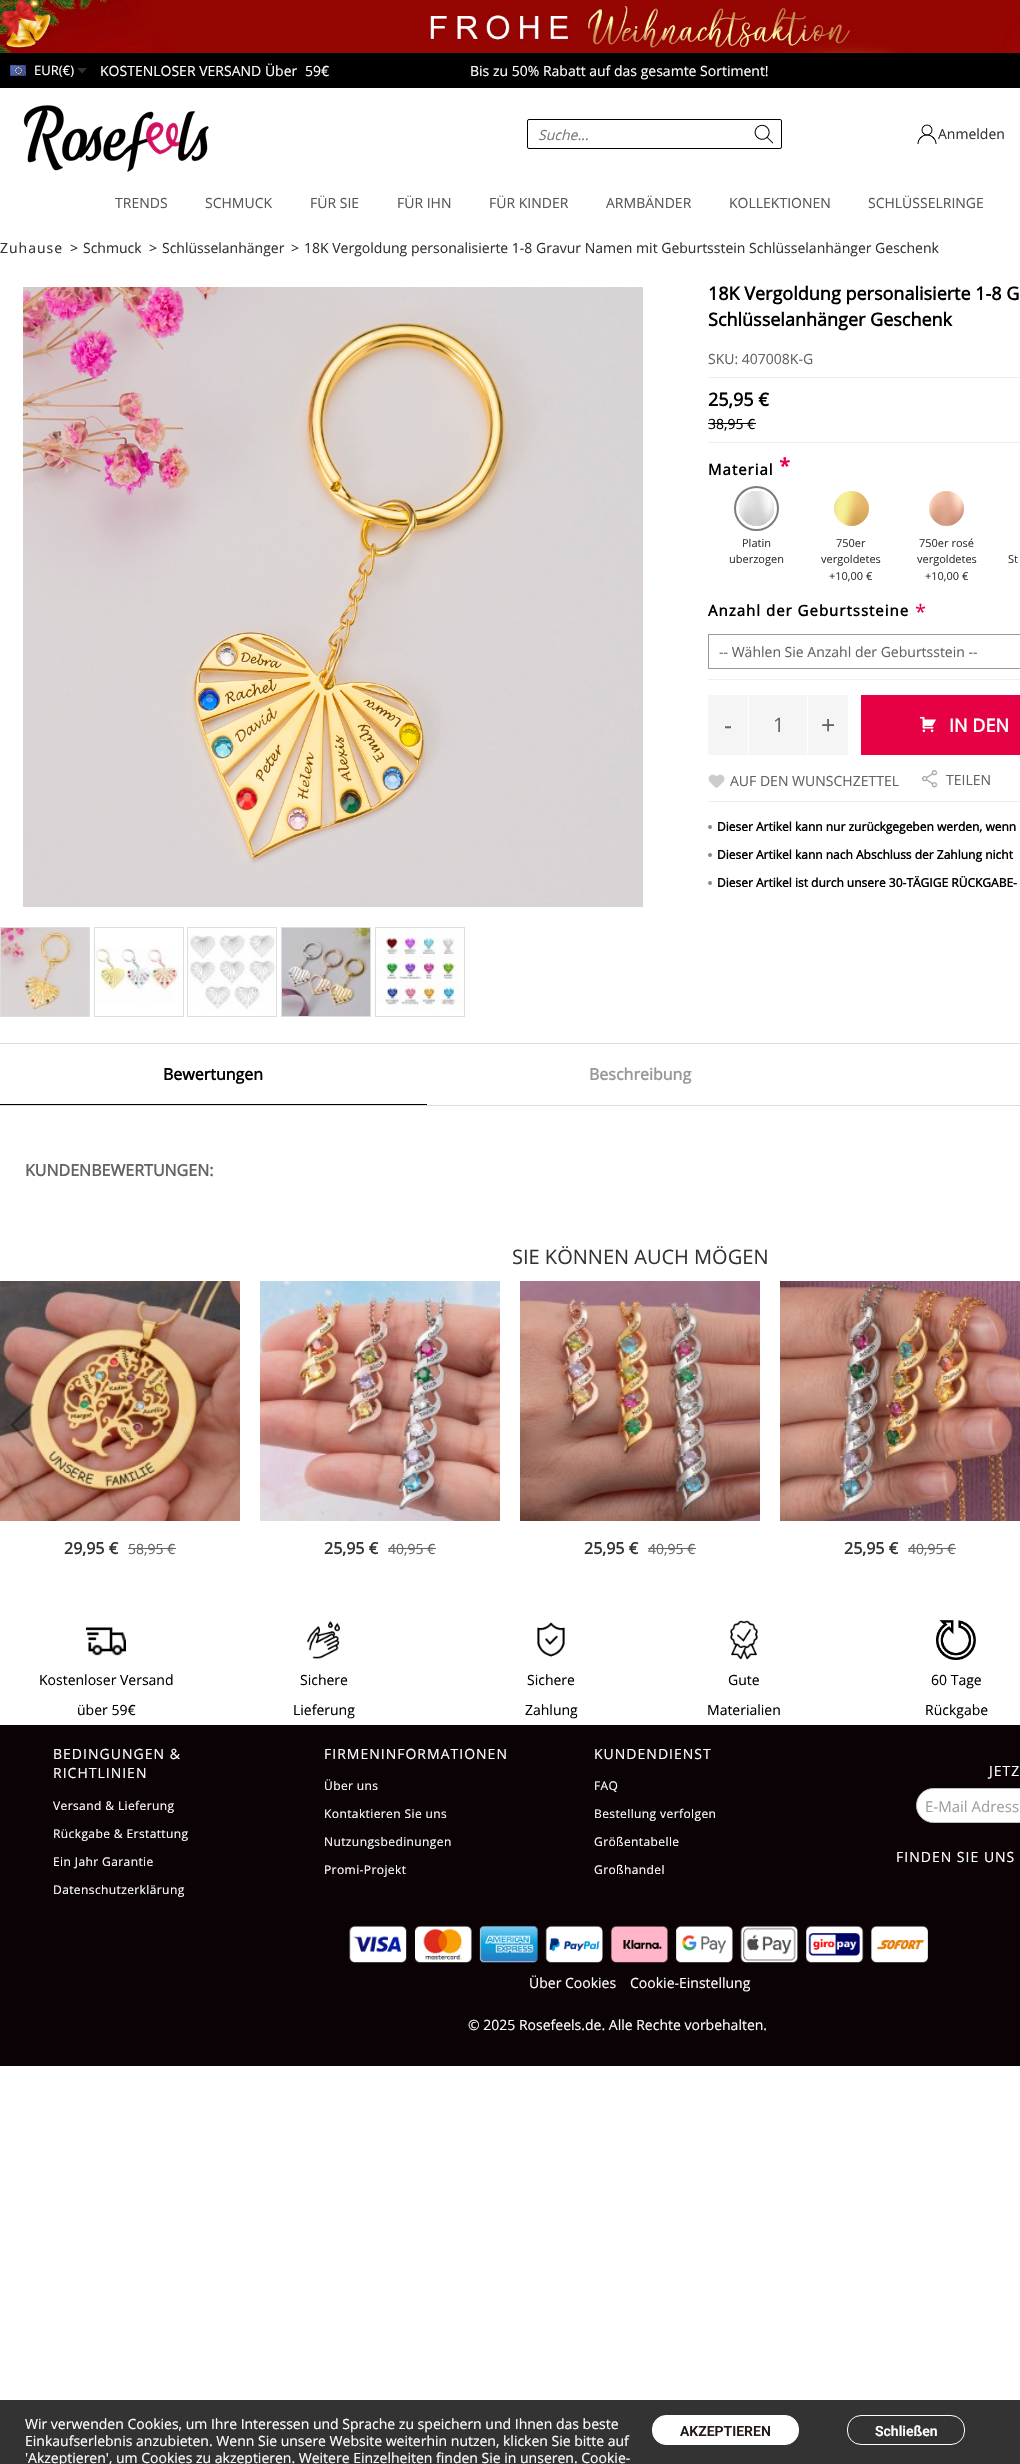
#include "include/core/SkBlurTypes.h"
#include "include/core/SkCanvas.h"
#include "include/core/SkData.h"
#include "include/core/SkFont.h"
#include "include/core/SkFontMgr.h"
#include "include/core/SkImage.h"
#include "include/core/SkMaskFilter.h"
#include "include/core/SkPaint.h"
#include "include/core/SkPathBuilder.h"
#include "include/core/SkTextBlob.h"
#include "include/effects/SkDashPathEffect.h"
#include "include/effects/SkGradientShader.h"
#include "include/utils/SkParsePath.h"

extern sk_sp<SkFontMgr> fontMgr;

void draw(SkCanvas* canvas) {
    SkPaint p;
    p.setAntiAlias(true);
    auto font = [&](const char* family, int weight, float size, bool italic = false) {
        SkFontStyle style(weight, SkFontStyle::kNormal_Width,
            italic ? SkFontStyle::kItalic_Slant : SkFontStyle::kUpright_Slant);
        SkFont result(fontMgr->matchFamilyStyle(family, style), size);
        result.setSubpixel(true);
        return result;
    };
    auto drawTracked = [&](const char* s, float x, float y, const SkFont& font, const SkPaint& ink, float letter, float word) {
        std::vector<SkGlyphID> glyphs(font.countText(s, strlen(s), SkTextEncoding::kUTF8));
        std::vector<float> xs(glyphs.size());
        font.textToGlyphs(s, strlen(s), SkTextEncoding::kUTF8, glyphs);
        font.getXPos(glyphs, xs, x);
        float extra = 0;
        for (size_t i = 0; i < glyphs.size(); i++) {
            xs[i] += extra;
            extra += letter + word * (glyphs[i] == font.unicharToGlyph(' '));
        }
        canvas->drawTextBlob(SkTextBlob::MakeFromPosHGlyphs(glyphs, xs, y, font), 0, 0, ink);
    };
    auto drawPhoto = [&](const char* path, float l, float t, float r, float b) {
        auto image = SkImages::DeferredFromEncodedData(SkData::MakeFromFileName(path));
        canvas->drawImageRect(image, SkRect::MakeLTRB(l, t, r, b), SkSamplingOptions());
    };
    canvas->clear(0xFFFFFFFF);
    drawPhoto("media/1.png", 0, 0, 1020, 53);
    p.setColor(0xFF000000);
    canvas->drawRect(SkRect::MakeLTRB(0, 53, 1020, 88), p);
    drawPhoto("media/2.png", 10, 65, 26, 76);
    auto font1 = font("Open Sans", 400, 13);
    p.setColor(0xFFFFFFFF);
    canvas->drawString("EUR(€)", 34, 75, font1, p);
    drawPhoto("media/3.png", 77, 68, 87, 74);
    auto font2 = font("Open Sans", 400, 14);
    {
        const struct { const char* s; float x, y; } items[] = {
            {"KOSTENLOSER VERSAND Über", 100, 76},
            {"59€", 305, 76},
            {"Bis zu 50% Rabatt auf das gesamte Sortiment!", 470, 76},
        };
        for (auto [s, x, y] : items) {
            canvas->drawString(s, x, y, font2, p);
        }
    }
    drawPhoto("media/4.png", 23, 105, 209, 172);
    p.setStyle(SkPaint::kStroke_Style);
    p.setStrokeWidth(1);
    p.setColor(0xFF000000);
    canvas->drawRoundRect(SkRect::MakeLTRB(527.5f, 119.5f, 781.5f, 148.5f), 1.5f, 1.5f, p);
    auto font3 = font("Open Sans", 400, 14, true);
    p.setStyle(SkPaint::kFill_Style);
    p.setColor(0xFF777777);
    canvas->drawString("Suche...", 538, 140, font3, p);
    drawPhoto("media/5.png", 754, 124, 774, 144);
    drawPhoto("media/6.png", 917, 124, 937, 144);
    p.setColor(0xFF333333);
    canvas->drawString("Anmelden", 938, 139, font2, p);
    p.setColor(0xFF575757);
    {
        const struct { const char* s; float x, y; } items[] = {
            {"TRENDS", 115, 208},
            {"SCHMUCK", 205, 208},
            {"FÜR SIE", 310, 208},
            {"FÜR IHN", 397, 208},
            {"FÜR KINDER", 489, 208},
            {"ARMBÄNDER", 606, 208},
            {"KOLLEKTIONEN", 729, 208},
            {"SCHLÜSSELRINGE", 868, 208},
        };
        for (auto [s, x, y] : items) {
            canvas->drawString(s, x, y, font2, p);
        }
    }
    p.setColor(0xFF333333);
    drawTracked("Zuhause", 0, 253, font2, p, 1, 0);
    {
        const struct { const char* s; float x, y; } items[] = {
            {">", 70, 253},
            {"Schmuck", 83, 253},
            {">", 149, 253},
            {"Schlüsselanhänger", 162, 253},
            {">", 291, 253},
            {"18K Vergoldung personalisierte 1-8 Gravur Namen mit Geburtsstein Schlüsselanhänger Geschenk", 304, 253},
        };
        for (auto [s, x, y] : items) {
            canvas->drawString(s, x, y, font2, p);
        }
    }
    drawPhoto("media/7.png", 23, 287, 643, 907);
    p.setStyle(SkPaint::kStroke_Style);
    p.setColor(0xFFDDDDDD);
    canvas->drawRect(SkRect::MakeLTRB(0.5f, 927.5f, 89.5f, 1016.5f), p);
    drawPhoto("media/8.png", 1, 928, 89, 1016);
    canvas->drawRect(SkRect::MakeLTRB(94.5f, 927.5f, 183.5f, 1016.5f), p);
    drawPhoto("media/9.png", 95, 946, 183, 1003);
    canvas->drawRect(SkRect::MakeLTRB(187.5f, 927.5f, 276.5f, 1016.5f), p);
    drawPhoto("media/10.png", 188, 935, 276, 1010);
    canvas->drawRect(SkRect::MakeLTRB(281.5f, 927.5f, 370.5f, 1016.5f), p);
    drawPhoto("media/11.png", 282, 928, 370, 1016);
    canvas->drawRect(SkRect::MakeLTRB(375.5f, 927.5f, 464.5f, 1016.5f), p);
    drawPhoto("media/12.png", 376, 928, 464, 1010);
    auto font4 = font("Open Sans", 700, 18);
    p.setStyle(SkPaint::kFill_Style);
    p.setColor(0xFF000000);
    canvas->drawString("18K Vergoldung personalisierte 1-8 G", 708, 300, font4, p);
    canvas->drawString("Schlüsselanhänger Geschenk", 708, 326, font4, p);
    p.setColor(0xFF636363);
    canvas->drawString("SKU: 407008K-G", 708, 364, font2, p);
    p.setColor(0xFFEEEEEE);
    canvas->drawRect(SkRect::MakeLTRB(708, 377, 1020, 378), p);
    canvas->drawRect(SkRect::MakeLTRB(708, 442, 1020, 443), p);
    p.setColor(0xFF000000);
    canvas->drawString("25,95 €", 708, 406, font4, p);
    canvas->drawString("38,95 €", 708, 429, font2, p);
    canvas->drawRect(SkRect::MakeLTRB(708, 423, 756, 424), p);
    auto font5 = font("Open Sans", 700, 20);
    p.setColor(0xFFE60044);
    drawTracked("*", 779, 473, font5, p, 1, 0);
    auto font6 = font("Open Sans", 700, 15);
    p.setColor(0xFF000000);
    drawTracked("Material", 708, 475, font6, p, 1, 0);
    p.setStyle(SkPaint::kStroke_Style);
    p.setStrokeWidth(5);
    p.setColor(0xFF7C7C7C);
    canvas->drawCircle(756.5f, 508.5f, 20, p);
    p.setStrokeWidth(3);
    p.setColor(0xFFFFFFFF);
    canvas->drawCircle(756.5f, 508.5f, 19, p);
    drawPhoto("media/13.png", 739, 491, 774, 526);
    auto font7 = font("Open Sans", 400, 11);
    p.setStyle(SkPaint::kFill_Style);
    p.setColor(0xFF333333);
    canvas->drawString("Platin", 742, 547, font7, p);
    canvas->drawString("uberzogen", 729, 563, font7, p);
    drawPhoto("media/14.png", 834, 491, 869, 526);
    {
        const struct { const char* s; float x, y; } items[] = {
            {"750er", 836, 547},
            {"vergoldetes", 821, 563},
            {"+10,00 €", 829, 580},
        };
        for (auto [s, x, y] : items) {
            canvas->drawString(s, x, y, font7, p);
        }
    }
    drawPhoto("media/15.png", 929, 491, 964, 526);
    {
        const struct { const char* s; float x, y; } items[] = {
            {"750er rosé", 919, 547},
            {"vergoldetes", 917, 563},
            {"+10,00 €", 925, 580},
            {"St", 1008, 563},
        };
        for (auto [s, x, y] : items) {
            canvas->drawString(s, x, y, font7, p);
        }
    }
    p.setColor(0xFF000000);
    drawTracked("Anzahl der Geburtssteine", 708, 616, font6, p, 1, 0);
    auto font8 = font("Open Sans", 400, 20);
    p.setColor(0xFFE60044);
    canvas->drawString("*", 915, 619, font8, p);
    p.setStyle(SkPaint::kStroke_Style);
    p.setStrokeWidth(1);
    p.setColor(0xFF999999);
    canvas->drawRect(SkRect::MakeLTRB(708.5f, 634.5f, 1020.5f, 668.5f), p);
    p.setStyle(SkPaint::kFill_Style);
    p.setColor(0xFF636363);
    canvas->drawString("-- Wählen Sie Anzahl der Geburtsstein --", 719, 657, font2, p);
    p.setColor(0xFFEEEEEE);
    canvas->drawRect(SkRect::MakeLTRB(708, 679, 1020, 680), p);
    p.setColor(0xFFF5F5F5);
    canvas->drawRect(SkRect::MakeLTRB(708, 695, 848, 755), p);
    auto font9 = font("Open Sans", 400, 25);
    p.setColor(0xFF636363);
    canvas->drawString("-", 724, 734, font9, p);
    p.setColor(0xFFFFFFFF);
    canvas->drawRect(SkRect::MakeLTRB(807, 696, 808, 754), p);
    canvas->drawRect(SkRect::MakeLTRB(748, 696, 749, 754), p);
    p.setColor(0xFF636363);
    canvas->drawString("1", 773, 732, font8, p);
    canvas->drawString("+", 821, 734, font9, p);
    p.setColor(0xFFE60044);
    canvas->drawRect(SkRect::MakeLTRB(861, 695, 1020, 755), p);
    drawPhoto("media/16.png", 919, 716, 937, 733);
    p.setColor(0xFFFFFFFF);
    canvas->drawString("IN DEN", 949, 732, font4, p);
    drawPhoto("media/17.png", 708, 774, 725, 788);
    p.setColor(0xFF636363);
    canvas->drawString("AUF DEN WUNSCHZETTEL", 730, 786, font2, p);
    drawPhoto("media/18.png", 922, 770, 938, 788);
    canvas->drawString("TEILEN", 946, 785, font2, p);
    p.setColor(0xFFEEEEEE);
    canvas->drawRect(SkRect::MakeLTRB(708, 801, 1020, 802), p);
    p.setColor(0xFF888888);
    canvas->drawCircle(710, 827, 2, p);
    auto font10 = font("Open Sans", 700, 12);
    p.setColor(0xFF000000);
    canvas->drawString("Dieser Artikel kann nur zurückgegeben werden, wenn", 717, 831, font10, p);
    p.setColor(0xFF888888);
    canvas->drawCircle(710, 855, 2, p);
    p.setColor(0xFF000000);
    canvas->drawString("Dieser Artikel kann nach Abschluss der Zahlung nicht", 717, 859, font10, p);
    p.setColor(0xFF888888);
    canvas->drawCircle(710, 883, 2, p);
    p.setColor(0xFF000000);
    canvas->drawString("Dieser Artikel ist durch unsere 30-TÄGIGE RÜCKGABE-", 717, 887, font10, p);
    {
        const struct { float l, t, r, b; SkColor color; } items[] = {
            {0, 1043, 1020, 1044, 0xFFDDDDDD},
            {0, 1105, 1020, 1106, 0xFFDDDDDD},
            {0, 1104, 427, 1105, 0xFF000000},
        };
        for (auto [l, t, r, b, color] : items) {
            p.setColor(color);
            canvas->drawRect(SkRect::MakeLTRB(l, t, r, b), p);
        }
    }
    auto font11 = font("Open Sans", 700, 16);
    canvas->drawString("Bewertungen", 163, 1080, font11, p);
    p.setColor(0xFF999999);
    canvas->drawString("Beschreibung", 589, 1080, font11, p);
    p.setColor(0xFF636363);
    canvas->drawString("KUNDENBEWERTUNGEN:", 25, 1176, font11, p);
    p.setColor(0xFF333333);
    canvas->drawString("SIE KÖNNEN AUCH MÖGEN", 512, 1264, font8, p);
    drawPhoto("media/19.png", 0, 1281, 240, 1521);
    p.setColor(0x59000000);
    canvas->drawPath(SkPathBuilder().moveTo(10, 1425).lineTo(32, 1403).lineTo(34, 1405).lineTo(14, 1425).lineTo(34, 1445).lineTo(32, 1447).close().detach(), p);
    p.setColor(0xFF333333);
    canvas->drawString("29,95 €", 64, 1554, font11, p);
    p.setColor(0xFF636363);
    canvas->drawString("58,95 €", 128, 1554, font2, p);
    canvas->drawRect(SkRect::MakeLTRB(128, 1548, 176, 1549), p);
    drawPhoto("media/20.png", 260, 1281, 500, 1521);
    p.setColor(0xFF333333);
    canvas->drawString("25,95 €", 324, 1554, font11, p);
    p.setColor(0xFF636363);
    canvas->drawString("40,95 €", 388, 1554, font2, p);
    canvas->drawRect(SkRect::MakeLTRB(388, 1548, 436, 1549), p);
    drawPhoto("media/21.png", 520, 1281, 760, 1521);
    p.setColor(0xFF333333);
    canvas->drawString("25,95 €", 584, 1554, font11, p);
    p.setColor(0xFF636363);
    canvas->drawString("40,95 €", 648, 1554, font2, p);
    canvas->drawRect(SkRect::MakeLTRB(648, 1548, 696, 1549), p);
    drawPhoto("media/22.png", 780, 1281, 1020, 1521);
    p.setColor(0xFF333333);
    canvas->drawString("25,95 €", 844, 1554, font11, p);
    p.setColor(0xFF636363);
    canvas->drawString("40,95 €", 908, 1554, font2, p);
    canvas->drawRect(SkRect::MakeLTRB(908, 1548, 956, 1549), p);
    p.setColor(0xFF0A0204);
    canvas->drawRect(SkRect::MakeLTRB(0, 1725, 1020, 2066), p);
    drawPhoto("media/23.png", 86, 1627, 126, 1656);
    p.setColor(0xFF000000);
    canvas->drawString("Kostenloser Versand", 39, 1685, font2, p);
    canvas->drawString("über 59€", 77, 1715, font2, p);
    drawPhoto("media/24.png", 307, 1620, 340, 1659);
    canvas->drawString("Sichere", 300, 1685, font2, p);
    canvas->drawString("Lieferung", 293, 1715, font2, p);
    drawPhoto("media/25.png", 537, 1622, 565, 1657);
    canvas->drawString("Sichere", 527, 1685, font2, p);
    canvas->drawString("Zahlung", 525, 1715, font2, p);
    drawPhoto("media/26.png", 730, 1620, 758, 1660);
    canvas->drawString("Gute", 728, 1685, font2, p);
    canvas->drawString("Materialien", 707, 1715, font2, p);
    drawPhoto("media/27.png", 936, 1620, 976, 1660);
    canvas->drawString("60 Tage", 931, 1685, font2, p);
    canvas->drawString("Rückgabe", 925, 1715, font2, p);
    p.setColor(0xFFFFFFFF);
    drawTracked("BEDINGUNGEN &", 53, 1759, font2, p, 1, 0);
    drawTracked("RICHTLINIEN", 53, 1778, font2, p, 1, 0);
    auto font12 = font("Open Sans", 400, 12);
    {
        const struct { const char* s; float x, y; } items[] = {
            {"Versand & Lieferung", 53, 1810},
            {"Rückgabe & Erstattung", 53, 1838},
            {"Ein Jahr Garantie", 53, 1866},
            {"Datenschutzerklärung", 53, 1894},
        };
        for (auto [s, x, y] : items) {
            drawTracked(s, x, y, font12, p, 0.4f, 0);
        }
    }
    drawTracked("FIRMENINFORMATIONEN", 324, 1759, font2, p, 1, 0);
    {
        const struct { const char* s; float x, y; } items[] = {
            {"Über uns", 324, 1790},
            {"Kontaktieren Sie uns", 324, 1818},
            {"Nutzungsbedinungen", 324, 1846},
            {"Promi-Projekt", 324, 1874},
        };
        for (auto [s, x, y] : items) {
            drawTracked(s, x, y, font12, p, 0.4f, 0);
        }
    }
    drawTracked("KUNDENDIENST", 594, 1759, font2, p, 1, 0);
    {
        const struct { const char* s; float x, y; } items[] = {
            {"FAQ", 594, 1790},
            {"Bestellung verfolgen", 594, 1818},
            {"Größentabelle", 594, 1846},
            {"Großhandel", 594, 1874},
        };
        for (auto [s, x, y] : items) {
            drawTracked(s, x, y, font12, p, 0.4f, 0);
        }
    }
    drawTracked("JETZ", 989, 1776, font2, p, 1, 0);
    canvas->drawRoundRect(SkRect::MakeLTRB(916.5f, 1788.5f, 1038.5f, 1822.5f), 17, 17, p);
    p.setStyle(SkPaint::kStroke_Style);
    p.setColor(0xFFC0C0C0);
    canvas->drawRoundRect(SkRect::MakeLTRB(916.5f, 1788.5f, 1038.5f, 1822.5f), 17, 17, p);
    auto font13 = font("Open Sans", 400, 15);
    p.setStyle(SkPaint::kFill_Style);
    p.setColor(0xFFA0A0A0);
    canvas->drawString("E-Mail Adress", 925, 1812, font13, p);
    p.setColor(0xFFFFFFFF);
    drawTracked("FINDEN SIE UNS", 896, 1862, font2, p, 1, 0);
    drawPhoto("media/28.png", 349, 1925, 928, 1963);
    {
        const struct { const char* s; float x, y; } items[] = {
            {"Über Cookies", 529, 1988},
            {"Cookie-Einstellung", 630, 1988},
            {"© 2025 Rosefeels.de. Alle Rechte vorbehalten.", 468, 2030},
        };
        for (auto [s, x, y] : items) {
            canvas->drawString(s, x, y, font2, p);
        }
    }
    p.setColor(0xFF333333);
    canvas->drawRect(SkRect::MakeLTRB(0, 2400, 1020, 2464), p);
    p.setColor(0xFFFFFFFF);
    {
        const struct { const char* s; float x, y; } items[] = {
            {"Wir verwenden Cookies, um Ihre Interessen und Sprache zu speichern und Ihnen das beste", 25, 2429},
            {"Einkaufserlebnis anzubieten. Wenn Sie unsere Website weiterhin nutzen, klicken Sie bitte auf", 25, 2446},
            {"'Akzeptieren', um Cookies zu akzeptieren. Weitere Einzelheiten finden Sie in unseren. Cookie-", 25, 2463},
        };
        for (auto [s, x, y] : items) {
            canvas->drawString(s, x, y, font2, p);
        }
    }
    canvas->drawRoundRect(SkRect::MakeLTRB(652.5f, 2415.5f, 798.5f, 2444.5f), 13.5f, 13.5f, p);
    p.setStyle(SkPaint::kStroke_Style);
    canvas->drawRoundRect(SkRect::MakeLTRB(652.5f, 2415.5f, 798.5f, 2444.5f), 13.5f, 13.5f, p);
    auto font14 = font("Roboto", 600, 14);
    p.setStyle(SkPaint::kFill_Style);
    p.setColor(0xFF221816);
    canvas->drawString("AKZEPTIEREN", 680, 2436, font14, p);
    p.setStyle(SkPaint::kStroke_Style);
    p.setColor(0xFFFFFFFF);
    canvas->drawRoundRect(SkRect::MakeLTRB(847.5f, 2415.5f, 964.5f, 2444.5f), 13.5f, 13.5f, p);
    p.setStyle(SkPaint::kFill_Style);
    canvas->drawString("Schließen", 875, 2436, font14, p);
}
